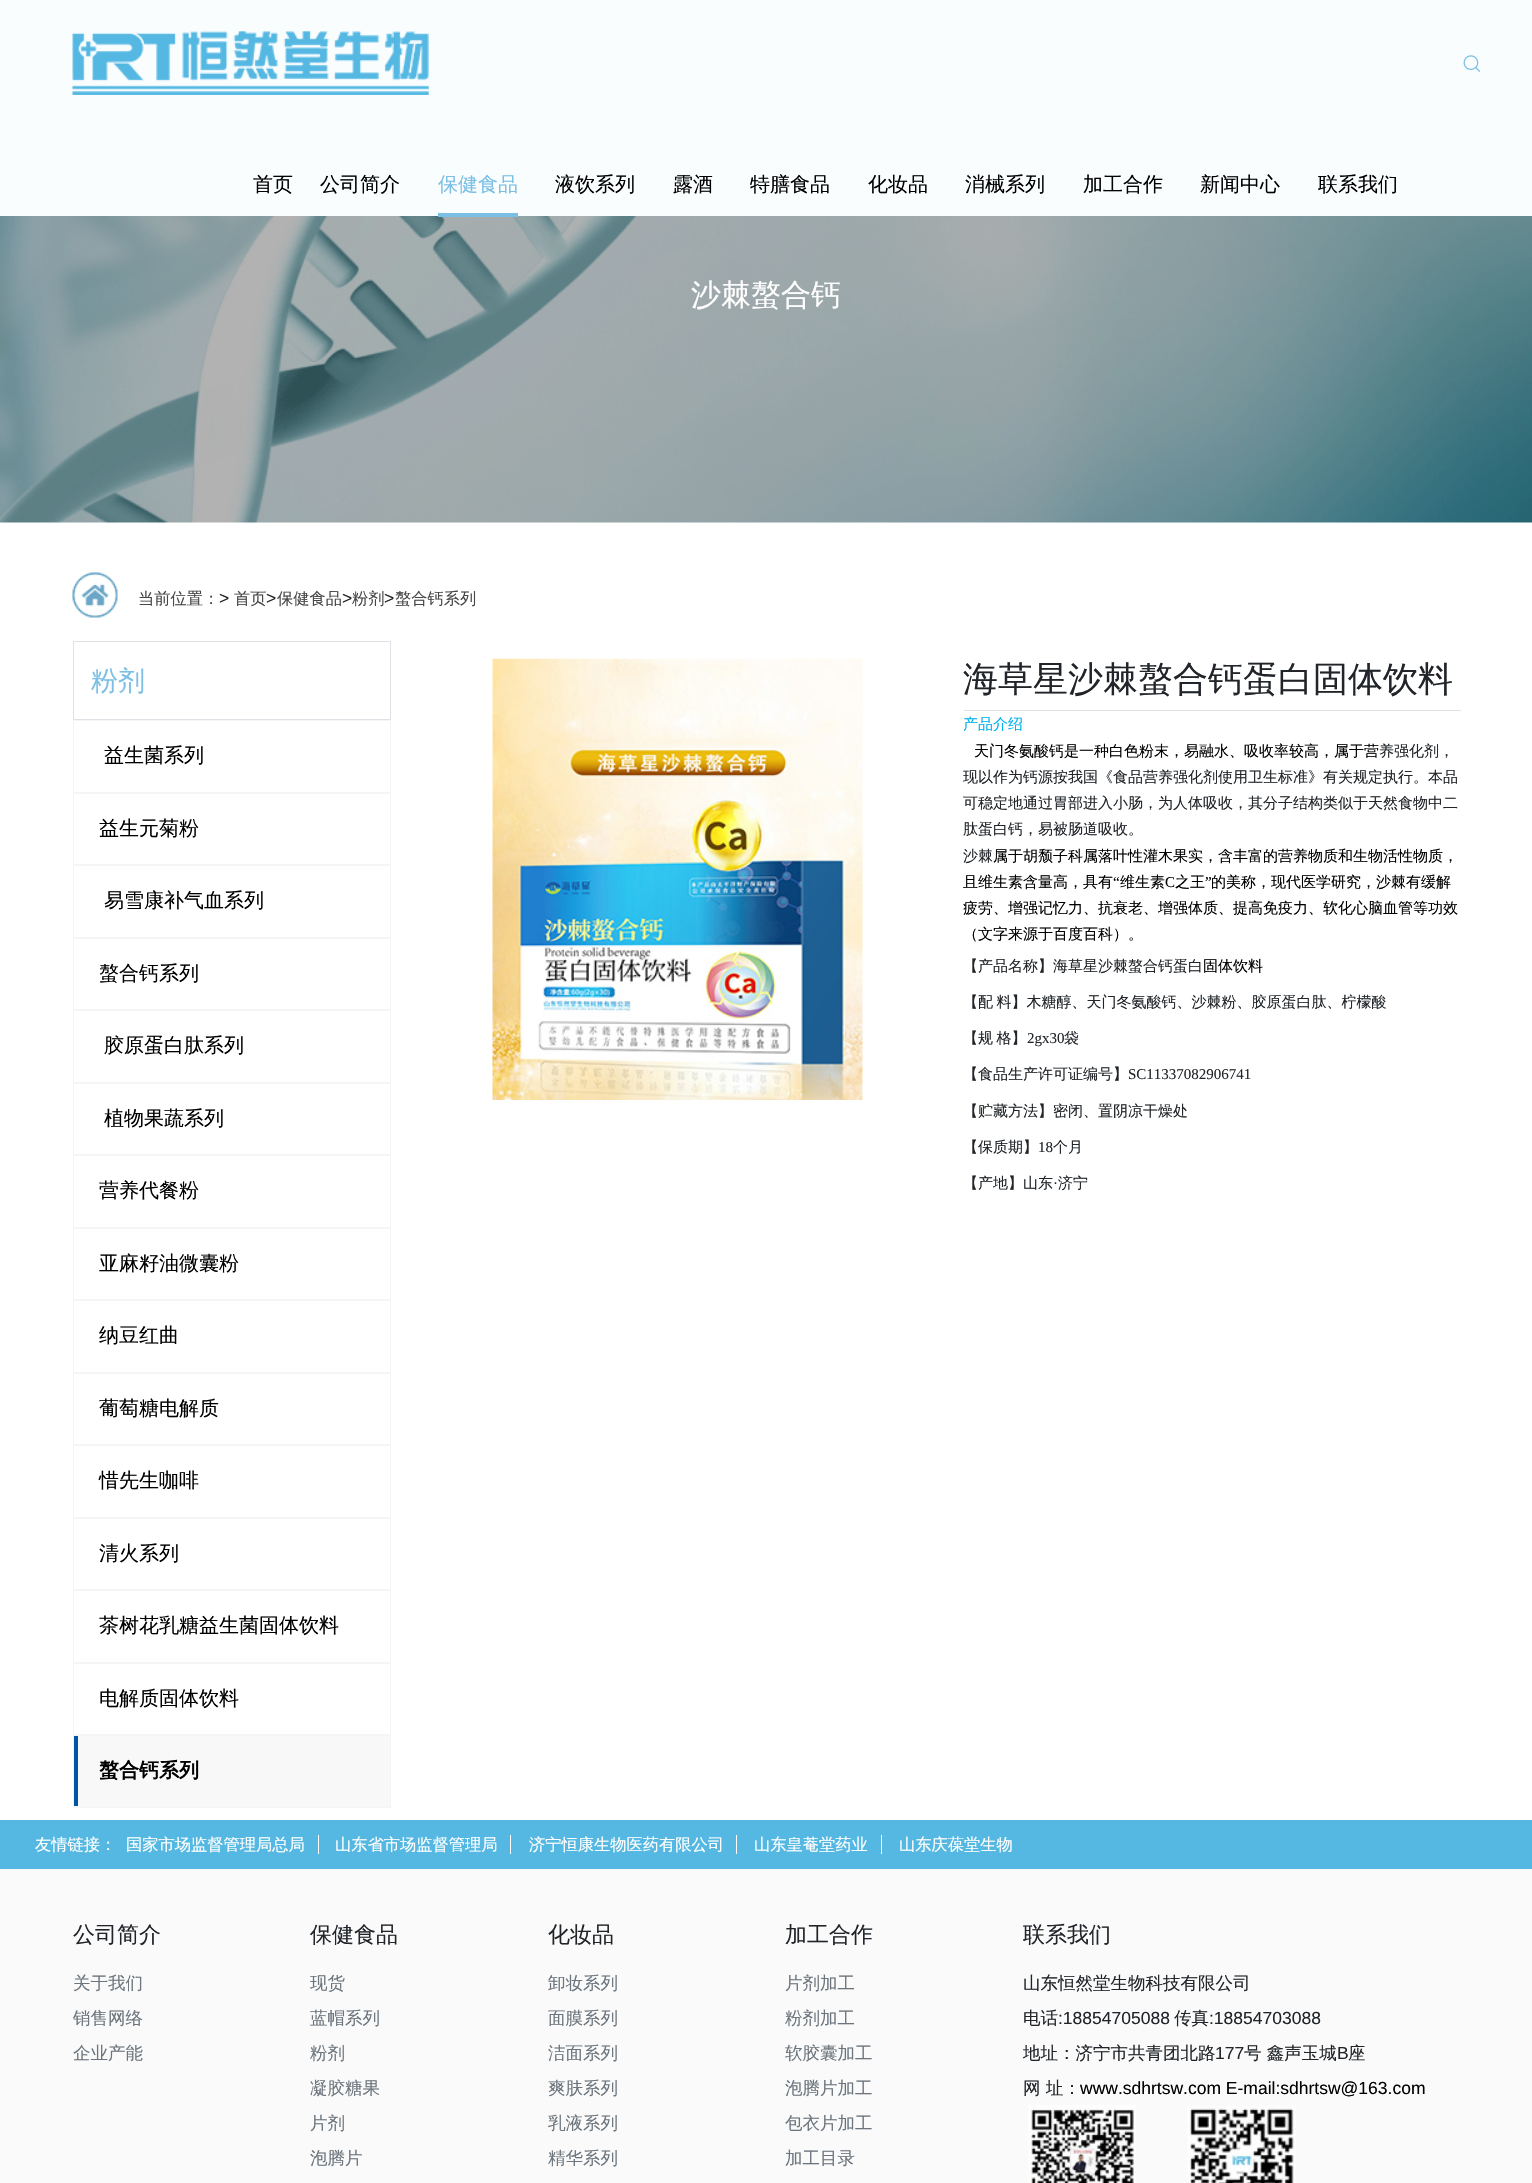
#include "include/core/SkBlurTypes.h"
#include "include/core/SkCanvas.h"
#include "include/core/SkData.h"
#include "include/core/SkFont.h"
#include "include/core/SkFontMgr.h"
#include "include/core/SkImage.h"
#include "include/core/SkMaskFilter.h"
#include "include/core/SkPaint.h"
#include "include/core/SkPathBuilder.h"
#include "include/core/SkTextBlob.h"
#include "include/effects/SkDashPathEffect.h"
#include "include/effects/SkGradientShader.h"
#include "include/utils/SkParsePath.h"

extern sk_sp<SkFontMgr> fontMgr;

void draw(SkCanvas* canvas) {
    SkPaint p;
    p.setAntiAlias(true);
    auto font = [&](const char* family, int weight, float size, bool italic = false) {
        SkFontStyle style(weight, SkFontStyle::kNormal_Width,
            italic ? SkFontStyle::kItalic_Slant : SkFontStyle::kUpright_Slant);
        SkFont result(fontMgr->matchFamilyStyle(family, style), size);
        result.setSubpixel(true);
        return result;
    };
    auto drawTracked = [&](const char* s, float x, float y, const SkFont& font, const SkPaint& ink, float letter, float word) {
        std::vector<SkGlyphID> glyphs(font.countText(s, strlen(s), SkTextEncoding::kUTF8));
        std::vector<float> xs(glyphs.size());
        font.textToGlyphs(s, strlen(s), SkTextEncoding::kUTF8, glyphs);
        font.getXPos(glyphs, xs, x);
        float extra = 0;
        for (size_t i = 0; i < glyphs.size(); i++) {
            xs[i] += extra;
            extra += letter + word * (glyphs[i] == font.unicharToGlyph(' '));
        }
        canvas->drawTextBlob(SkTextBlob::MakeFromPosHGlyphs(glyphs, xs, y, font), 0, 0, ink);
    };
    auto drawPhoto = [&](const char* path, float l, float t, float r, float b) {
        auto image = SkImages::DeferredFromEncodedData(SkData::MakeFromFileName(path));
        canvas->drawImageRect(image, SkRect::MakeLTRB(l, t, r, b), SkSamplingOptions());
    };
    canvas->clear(0xFFFFFFFF);
    p.setColor(0xFFFAFDFE);
    canvas->drawRect(SkRect::MakeLTRB(0, 0, 1532, 216), p);
    drawPhoto("media/1.png", 72, 31, 429, 95);
    drawPhoto("media/2.png", 1463, 55, 1481, 72);
    auto font1 = font("WenQuanYi Zen Hei", 500, 20);
    p.setColor(0xFF000000);
    canvas->drawString("首页", 253, 191, font1, p);
    canvas->drawString("公司简介", 320, 191, font1, p);
    p.setColor(0xFF7BBFE5);
    canvas->drawString("保健食品", 438, 191, font1, p);
    drawPhoto("media/3.png", 0, 216, 1532, 523);
    canvas->drawRect(SkRect::MakeLTRB(438, 213, 518, 217), p);
    p.setColor(0xFF000000);
    {
        const struct { const char* s; float x, y; } items[] = {
            {"液饮系列", 555, 191},
            {"露酒", 673, 191},
            {"特膳食品", 750, 191},
            {"化妆品", 868, 191},
            {"消械系列", 965, 191},
            {"加工合作", 1083, 191},
            {"新闻中心", 1200, 191},
            {"联系我们", 1318, 191},
        };
        for (auto [s, x, y] : items) {
            canvas->drawString(s, x, y, font1, p);
        }
    }
    auto font2 = font("WenQuanYi Zen Hei", 500, 30);
    p.setColor(0xFFFFFFFF);
    canvas->drawString("沙棘螯合钙", 691, 305, font2, p);
    drawPhoto("media/4.png", 72, 572, 118, 618);
    auto font3 = font("WenQuanYi Zen Hei", 500, 16.25f);
    p.setColor(0xFF464646);
    canvas->drawString("当前位置：", 138, 604, font3, p);
    auto font4 = font("Liberation Sans", 400, 17.5f);
    p.setColor(0xFF212529);
    canvas->drawString(">", 219, 604, font4, p);
    p.setColor(0xFF464646);
    canvas->drawString("首页", 234, 604, font3, p);
    p.setColor(0xFF212529);
    canvas->drawString(">", 266, 604, font4, p);
    p.setColor(0xFF464646);
    canvas->drawString("保健食品", 277, 604, font3, p);
    p.setColor(0xFF212529);
    canvas->drawString(">", 342, 604, font4, p);
    p.setColor(0xFF464646);
    canvas->drawString("粉剂", 352, 604, font3, p);
    p.setColor(0xFF212529);
    canvas->drawString(">", 384, 604, font4, p);
    p.setColor(0xFF464646);
    canvas->drawString("螯合钙系列", 395, 604, font3, p);
    p.setStyle(SkPaint::kStroke_Style);
    p.setStrokeWidth(1);
    p.setColor(0xFFDEE2E6);
    canvas->drawRect(SkRect::MakeLTRB(73.5f, 641.5f, 390.5f, 719.5f), p);
    auto font5 = font("WenQuanYi Zen Hei", 500, 27);
    p.setStyle(SkPaint::kFill_Style);
    p.setColor(0xFF7BBFE5);
    canvas->drawString("粉剂", 91, 690, font5, p);
    p.setStyle(SkPaint::kStroke_Style);
    p.setColor(0xFFF5F5F5);
    canvas->drawRect(SkRect::MakeLTRB(73.5f, 720.5f, 390.5f, 792.5f), p);
    p.setStyle(SkPaint::kFill_Style);
    p.setColor(0xFF000000);
    canvas->drawString("益生菌系列", 104, 762, font1, p);
    p.setStyle(SkPaint::kStroke_Style);
    p.setColor(0xFFF5F5F5);
    canvas->drawRect(SkRect::MakeLTRB(73.5f, 793.5f, 390.5f, 864.5f), p);
    p.setStyle(SkPaint::kFill_Style);
    p.setColor(0xFF000000);
    canvas->drawString("益生元菊粉", 99, 835, font1, p);
    p.setStyle(SkPaint::kStroke_Style);
    p.setColor(0xFFF5F5F5);
    canvas->drawRect(SkRect::MakeLTRB(73.5f, 865.5f, 390.5f, 937.5f), p);
    p.setStyle(SkPaint::kFill_Style);
    p.setColor(0xFF000000);
    canvas->drawString("易雪康补气血系列", 104, 907, font1, p);
    p.setStyle(SkPaint::kStroke_Style);
    p.setColor(0xFFF5F5F5);
    canvas->drawRect(SkRect::MakeLTRB(73.5f, 938.5f, 390.5f, 1009.5f), p);
    p.setStyle(SkPaint::kFill_Style);
    p.setColor(0xFF000000);
    canvas->drawString("螯合钙系列", 99, 980, font1, p);
    p.setStyle(SkPaint::kStroke_Style);
    p.setColor(0xFFF5F5F5);
    canvas->drawRect(SkRect::MakeLTRB(73.5f, 1010.5f, 390.5f, 1082.5f), p);
    p.setStyle(SkPaint::kFill_Style);
    p.setColor(0xFF000000);
    canvas->drawString("胶原蛋白肽系列", 104, 1052, font1, p);
    p.setStyle(SkPaint::kStroke_Style);
    p.setColor(0xFFF5F5F5);
    canvas->drawRect(SkRect::MakeLTRB(73.5f, 1083.5f, 390.5f, 1154.5f), p);
    p.setStyle(SkPaint::kFill_Style);
    p.setColor(0xFF000000);
    canvas->drawString("植物果蔬系列", 104, 1125, font1, p);
    p.setStyle(SkPaint::kStroke_Style);
    p.setColor(0xFFF5F5F5);
    canvas->drawRect(SkRect::MakeLTRB(73.5f, 1155.5f, 390.5f, 1227.5f), p);
    p.setStyle(SkPaint::kFill_Style);
    p.setColor(0xFF000000);
    canvas->drawString("营养代餐粉", 99, 1197, font1, p);
    p.setStyle(SkPaint::kStroke_Style);
    p.setColor(0xFFF5F5F5);
    canvas->drawRect(SkRect::MakeLTRB(73.5f, 1228.5f, 390.5f, 1299.5f), p);
    p.setStyle(SkPaint::kFill_Style);
    p.setColor(0xFF000000);
    canvas->drawString("亚麻籽油微囊粉", 99, 1270, font1, p);
    p.setStyle(SkPaint::kStroke_Style);
    p.setColor(0xFFF5F5F5);
    canvas->drawRect(SkRect::MakeLTRB(73.5f, 1300.5f, 390.5f, 1372.5f), p);
    p.setStyle(SkPaint::kFill_Style);
    p.setColor(0xFF000000);
    canvas->drawString("纳豆红曲", 99, 1342, font1, p);
    p.setStyle(SkPaint::kStroke_Style);
    p.setColor(0xFFF5F5F5);
    canvas->drawRect(SkRect::MakeLTRB(73.5f, 1373.5f, 390.5f, 1444.5f), p);
    p.setStyle(SkPaint::kFill_Style);
    p.setColor(0xFF000000);
    canvas->drawString("葡萄糖电解质", 99, 1415, font1, p);
    p.setStyle(SkPaint::kStroke_Style);
    p.setColor(0xFFF5F5F5);
    canvas->drawRect(SkRect::MakeLTRB(73.5f, 1445.5f, 390.5f, 1517.5f), p);
    p.setStyle(SkPaint::kFill_Style);
    p.setColor(0xFF000000);
    canvas->drawString("惜先生咖啡", 99, 1487, font1, p);
    p.setStyle(SkPaint::kStroke_Style);
    p.setColor(0xFFF5F5F5);
    canvas->drawRect(SkRect::MakeLTRB(73.5f, 1518.5f, 390.5f, 1589.5f), p);
    p.setStyle(SkPaint::kFill_Style);
    p.setColor(0xFF000000);
    canvas->drawString("清火系列", 99, 1560, font1, p);
    p.setStyle(SkPaint::kStroke_Style);
    p.setColor(0xFFF5F5F5);
    canvas->drawRect(SkRect::MakeLTRB(73.5f, 1590.5f, 390.5f, 1662.5f), p);
    p.setStyle(SkPaint::kFill_Style);
    p.setColor(0xFF000000);
    canvas->drawString("茶树花乳糖益生菌固体饮料", 99, 1632, font1, p);
    p.setStyle(SkPaint::kStroke_Style);
    p.setColor(0xFFF5F5F5);
    canvas->drawRect(SkRect::MakeLTRB(73.5f, 1663.5f, 390.5f, 1734.5f), p);
    p.setStyle(SkPaint::kFill_Style);
    p.setColor(0xFF000000);
    canvas->drawString("电解质固体饮料", 99, 1705, font1, p);
    p.setColor(0xFFF8F8F8);
    canvas->drawRect(SkRect::MakeLTRB(73.5f, 1735.5f, 390.5f, 1807.5f), p);
    p.setStyle(SkPaint::kStroke_Style);
    p.setColor(0xFFF5F5F5);
    canvas->drawRect(SkRect::MakeLTRB(73.5f, 1735.5f, 390.5f, 1807.5f), p);
    p.setStyle(SkPaint::kFill_Style);
    p.setColor(0xFF0054A7);
    canvas->drawRect(SkRect::MakeLTRB(74, 1736, 78, 1806), p);
    auto font6 = font("WenQuanYi Zen Hei", 700, 20);
    p.setColor(0xFF000000);
    canvas->drawString("螯合钙系列", 99, 1777, font6, p);
    drawPhoto("media/5.png", 492, 658, 863, 1100);
    p.setColor(0xFFDEE2E6);
    canvas->drawRect(SkRect::MakeLTRB(964, 710, 1461, 711), p);
    auto font7 = font("WenQuanYi Zen Hei", 500, 35);
    p.setColor(0xFF212529);
    canvas->drawString("海草星沙棘螯合钙蛋白固体饮料", 963, 691, font7, p);
    auto font8 = font("WenQuanYi Zen Hei", 500, 15);
    p.setColor(0xFF00B0F0);
    canvas->drawString("产品介绍", 963, 729, font8, p);
    p.setColor(0xFF000000);
    canvas->drawString("天门冬氨酸钙是一种白色粉末，易融水、吸收率较高，属于营", 974, 756, font8, p);
    p.setColor(0xFF212529);
    {
        const struct { const char* s; float x, y; } items[] = {
            {"养强化剂，", 1379, 756},
            {"现以作为钙源按我国《食品营养强化剂使用卫生标准》有关规定执行。本品", 963, 782},
            {"可稳定地通过胃部进入小肠，为人体吸收，其分子结构类似于天然食物中二", 963, 808},
            {"肽蛋白钙，易被肠道吸收。", 963, 834},
            {"沙棘", 963, 861},
        };
        for (auto [s, x, y] : items) {
            canvas->drawString(s, x, y, font8, p);
        }
    }
    p.setColor(0xFF000000);
    canvas->drawString("属于胡颓子科属落叶性灌木果实，含丰富的营养物质和生物活性物质，", 993, 861, font8, p);
    canvas->drawString("且维生素含量高，具有", 963, 887, font8, p);
    auto font9 = font("Liberation Serif", 400, 15);
    canvas->drawString("“", 1113, 887, font9, p);
    canvas->drawString("维生素", 1120, 887, font8, p);
    canvas->drawString("C", 1165, 887, font9, p);
    canvas->drawString("之王", 1175, 887, font8, p);
    canvas->drawString("”", 1205, 887, font9, p);
    {
        const struct { const char* s; float x, y; } items[] = {
            {"的美称，现代医学研究，沙棘有缓解", 1211, 887},
            {"疲劳、增强记忆力、抗衰老、增强体质、提高免疫力、软化心脑血管等功效", 963, 913},
            {"（文字来源于百度百科）。", 963, 939},
        };
        for (auto [s, x, y] : items) {
            canvas->drawString(s, x, y, font8, p);
        }
    }
    p.setColor(0xFF212529);
    canvas->drawString("【产品名称】海草星沙棘螯合钙蛋白", 963, 971, font8, p);
    p.setColor(0xFF000000);
    canvas->drawString("固体饮料", 1203, 971, font8, p);
    p.setColor(0xFF212529);
    drawTracked("【配 料】木糖醇、天门冬氨酸钙、沙棘粉、胶原蛋白肽、柠檬酸", 963, 1007, font8, p, 0, -1);
    drawTracked("【规 格】", 963, 1043, font8, p, 0, -1);
    canvas->drawString("2gx30", 1027, 1043, font9, p);
    canvas->drawString("袋", 1064, 1043, font8, p);
    canvas->drawString("【食品生产许可证编号】", 963, 1079, font8, p);
    canvas->drawString("SC11337082906741", 1128, 1079, font9, p);
    canvas->drawString("【贮藏方法】密闭、置阴凉干燥处", 963, 1116, font8, p);
    canvas->drawString("【保质期】", 963, 1152, font8, p);
    canvas->drawString("18", 1038, 1152, font9, p);
    canvas->drawString("个月", 1053, 1152, font8, p);
    canvas->drawString("【产地】山东", 963, 1188, font8, p);
    canvas->drawString("·", 1053, 1188, font9, p);
    canvas->drawString("济宁", 1058, 1188, font8, p);
    p.setColor(0xFF55B8E2);
    canvas->drawRect(SkRect::MakeLTRB(0, 1820, 1532, 1869), p);
    p.setColor(0xFFFFFFFF);
    canvas->drawString("友情链接：", 35, 1850, font3, p);
    canvas->drawString("国家市场监督管理局总局", 126, 1850, font3, p);
    canvas->drawRect(SkRect::MakeLTRB(318, 1835, 319, 1854), p);
    canvas->drawString("山东省市场监督管理局", 335, 1850, font3, p);
    canvas->drawRect(SkRect::MakeLTRB(510, 1835, 511, 1854), p);
    canvas->drawString("济宁恒康生物医药有限公司", 529, 1850, font3, p);
    canvas->drawRect(SkRect::MakeLTRB(736, 1835, 737, 1854), p);
    canvas->drawString("山东皇菴堂药业", 754, 1850, font3, p);
    canvas->drawRect(SkRect::MakeLTRB(881, 1835, 882, 1854), p);
    canvas->drawString("山东庆葆堂生物", 899, 1850, font3, p);
    p.setColor(0xFFFAFAFA);
    canvas->drawRect(SkRect::MakeLTRB(0, 1869, 1532, 2183), p);
    auto font10 = font("WenQuanYi Zen Hei", 500, 22);
    p.setColor(0xFF212529);
    canvas->drawString("公司简介", 73, 1942, font10, p);
    auto font11 = font("WenQuanYi Zen Hei", 500, 17.5f);
    p.setColor(0xFF6C757D);
    {
        const struct { const char* s; float x, y; } items[] = {
            {"关于我们", 73, 1989},
            {"销售网络", 73, 2024},
            {"企业产能", 73, 2059},
        };
        for (auto [s, x, y] : items) {
            canvas->drawString(s, x, y, font11, p);
        }
    }
    p.setColor(0xFF212529);
    canvas->drawString("保健食品", 310, 1942, font10, p);
    p.setColor(0xFF6C757D);
    {
        const struct { const char* s; float x, y; } items[] = {
            {"现货", 310, 1989},
            {"蓝帽系列", 310, 2024},
            {"粉剂", 310, 2059},
            {"凝胶糖果", 310, 2094},
            {"片剂", 310, 2129},
            {"泡腾片", 310, 2164},
        };
        for (auto [s, x, y] : items) {
            canvas->drawString(s, x, y, font11, p);
        }
    }
    p.setColor(0xFF212529);
    canvas->drawString("化妆品", 548, 1942, font10, p);
    p.setColor(0xFF6C757D);
    {
        const struct { const char* s; float x, y; } items[] = {
            {"卸妆系列", 548, 1989},
            {"面膜系列", 548, 2024},
            {"洁面系列", 548, 2059},
            {"爽肤系列", 548, 2094},
            {"乳液系列", 548, 2129},
            {"精华系列", 548, 2164},
        };
        for (auto [s, x, y] : items) {
            canvas->drawString(s, x, y, font11, p);
        }
    }
    p.setColor(0xFF212529);
    canvas->drawString("加工合作", 785, 1942, font10, p);
    p.setColor(0xFF6C757D);
    {
        const struct { const char* s; float x, y; } items[] = {
            {"片剂加工", 785, 1989},
            {"粉剂加工", 785, 2024},
            {"软胶囊加工", 785, 2059},
            {"泡腾片加工", 785, 2094},
            {"包衣片加工", 785, 2129},
            {"加工目录", 785, 2164},
        };
        for (auto [s, x, y] : items) {
            canvas->drawString(s, x, y, font11, p);
        }
    }
    p.setColor(0xFF212529);
    canvas->drawString("联系我们", 1023, 1942, font10, p);
    canvas->drawString("山东恒然堂生物科技有限公司", 1023, 1989, font11, p);
    canvas->drawString("电话", 1023, 2024, font11, p);
    canvas->drawString(":18854705088", 1058, 2024, font4, p);
    canvas->drawString("传真", 1174, 2024, font11, p);
    canvas->drawString(":18854703088", 1209, 2024, font4, p);
    canvas->drawString("地址：济宁市共青团北路", 1023, 2059, font11, p);
    canvas->drawString("177", 1215, 2059, font4, p);
    canvas->drawString("号 鑫声玉城", 1244, 2059, font11, p);
    canvas->drawString("B", 1337, 2059, font4, p);
    canvas->drawString("座", 1348, 2059, font11, p);
    canvas->drawString("网 址：", 1023, 2094, font11, p);
    p.setColor(0xFF000000);
    canvas->drawString("www.sdhrtsw.com E-mail:sdhrtsw@163.com", 1080, 2094, font4, p);
    drawPhoto("media/6.png", 1028, 2105, 1136, 2183);
    drawPhoto("media/7.png", 1186, 2105, 1296, 2183);
}
